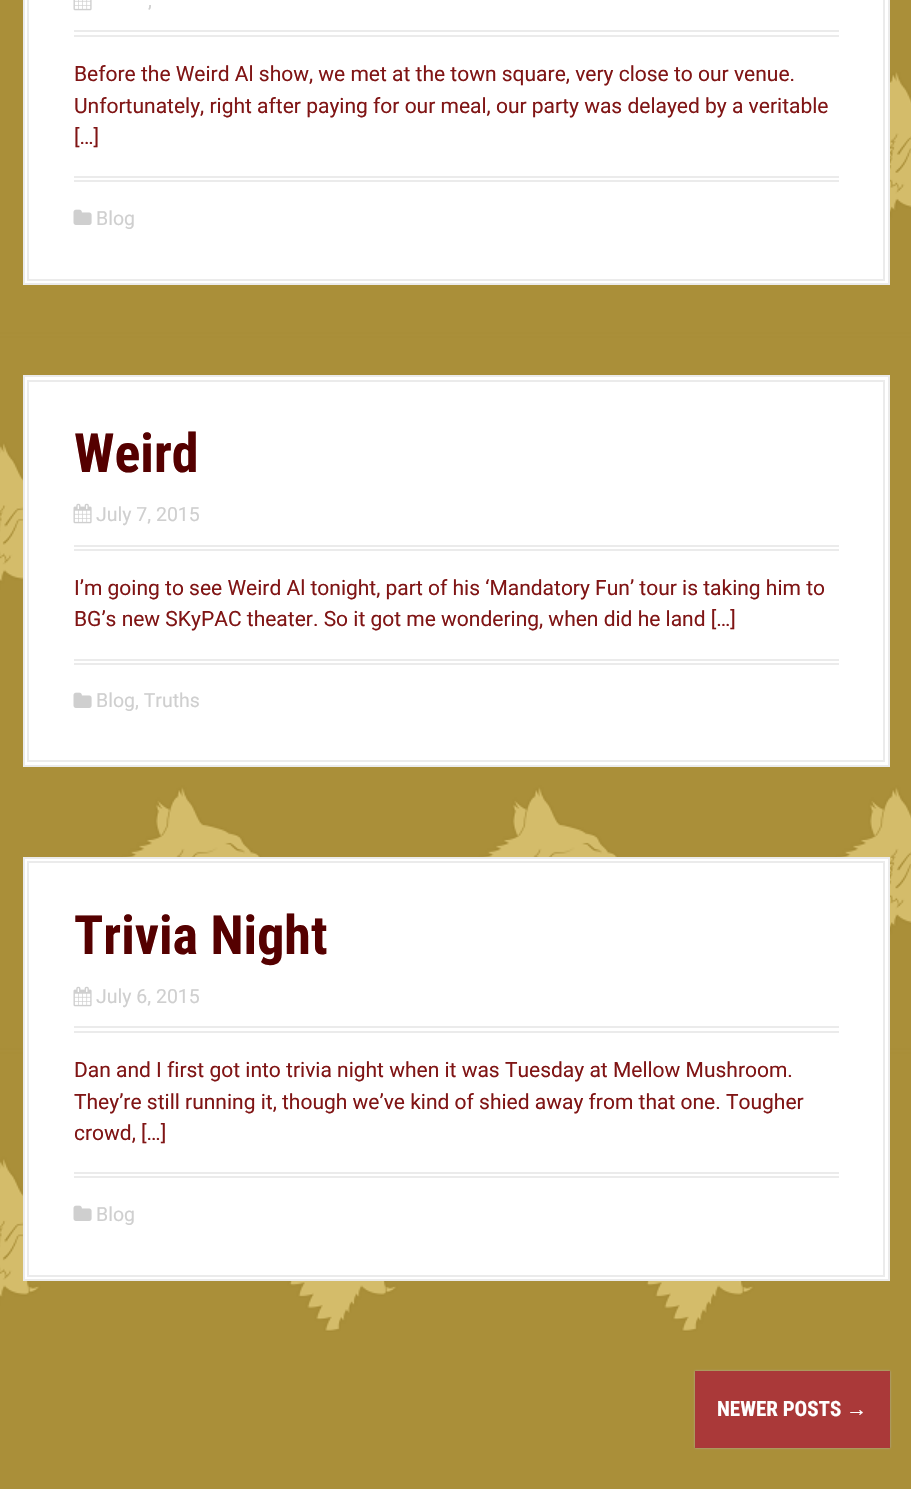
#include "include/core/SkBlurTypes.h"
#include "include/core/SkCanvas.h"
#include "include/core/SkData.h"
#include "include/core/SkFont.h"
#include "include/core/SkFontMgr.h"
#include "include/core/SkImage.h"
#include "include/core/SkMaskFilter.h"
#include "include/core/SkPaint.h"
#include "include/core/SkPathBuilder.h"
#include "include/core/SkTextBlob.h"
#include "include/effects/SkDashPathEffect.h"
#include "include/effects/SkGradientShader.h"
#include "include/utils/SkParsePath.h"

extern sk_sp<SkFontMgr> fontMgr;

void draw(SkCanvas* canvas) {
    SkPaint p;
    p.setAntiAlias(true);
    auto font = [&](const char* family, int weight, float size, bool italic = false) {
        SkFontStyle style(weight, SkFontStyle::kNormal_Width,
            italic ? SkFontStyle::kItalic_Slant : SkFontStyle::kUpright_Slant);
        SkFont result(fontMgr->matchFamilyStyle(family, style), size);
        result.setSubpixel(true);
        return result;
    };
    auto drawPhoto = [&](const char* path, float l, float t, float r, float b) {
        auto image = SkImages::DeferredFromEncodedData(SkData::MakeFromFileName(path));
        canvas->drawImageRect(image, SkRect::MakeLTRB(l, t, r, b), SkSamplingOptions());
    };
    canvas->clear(0xFFAA8F39);
    drawPhoto("media/1.png", 0, 72, 911, 1332);
    p.setColor(0xFFFFFFFF);
    canvas->drawRect(SkRect::MakeLTRB(24, -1, 889, 284), p);
    p.setStyle(SkPaint::kStroke_Style);
    p.setStrokeWidth(2);
    p.setColor(0xFFEBEBEB);
    canvas->drawRect(SkRect::MakeLTRB(24, -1, 889, 284), p);
    canvas->drawRect(SkRect::MakeLTRB(28, -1, 884, 280), p);
    p.setStyle(SkPaint::kFill_Style);
    canvas->drawRect(SkRect::MakeLTRB(74, 30, 839, 32), p);
    canvas->drawRect(SkRect::MakeLTRB(74, 35, 839, 37), p);
    drawPhoto("media/2.png", 73, 0, 92, 11);
    auto font1 = font("Roboto", 400, 19.5f);
    p.setColor(0xFFCFCFCF);
    canvas->drawString(",", 148, 7, font1, p);
    auto font2 = font("Roboto", 400, 21);
    p.setColor(0xFF801515);
    {
        const struct { const char* s; float x, y; } items[] = {
            {"Before the Weird Al show, we met at the town square, very close to our venue.", 74, 81},
            {"Unfortunately, right after paying for our meal, our party was delayed by a veritable", 74, 113},
            {"[…]", 74, 144},
        };
        for (auto [s, x, y] : items) {
            canvas->drawString(s, x, y, font2, p);
        }
    }
    p.setColor(0xFFEBEBEB);
    canvas->drawRect(SkRect::MakeLTRB(74, 176, 839, 178), p);
    canvas->drawRect(SkRect::MakeLTRB(74, 180, 839, 182), p);
    drawPhoto("media/3.png", 73, 209, 92, 225);
    p.setColor(0xFFCFCFCF);
    canvas->drawString("Blog", 96, 225, font1, p);
    p.setColor(0xFFFFFFFF);
    canvas->drawRect(SkRect::MakeLTRB(24, 376, 889, 766), p);
    p.setStyle(SkPaint::kStroke_Style);
    p.setColor(0xFFEBEBEB);
    canvas->drawRect(SkRect::MakeLTRB(24, 376, 889, 766), p);
    canvas->drawRect(SkRect::MakeLTRB(28, 381, 884, 761), p);
    p.setStyle(SkPaint::kFill_Style);
    canvas->drawRect(SkRect::MakeLTRB(74, 545, 839, 547), p);
    canvas->drawRect(SkRect::MakeLTRB(74, 549, 839, 551), p);
    auto font3 = font("Roboto Condensed", 700, 54);
    p.setColor(0xFF550000);
    canvas->drawString("Weird", 74, 472, font3, p);
    drawPhoto("media/4.png", 73, 503, 92, 524);
    p.setColor(0xFFCFCFCF);
    canvas->drawString("July 7, 2015", 96, 521, font1, p);
    p.setColor(0xFF801515);
    canvas->drawString("I’m going to see Weird Al tonight, part of his ‘Mandatory Fun’ tour is taking him to", 74, 595, font2, p);
    canvas->drawString("BG’s new SKyPAC theater. So it got me wondering, when did he land […]", 74, 626, font2, p);
    p.setColor(0xFFEBEBEB);
    canvas->drawRect(SkRect::MakeLTRB(74, 659, 839, 661), p);
    canvas->drawRect(SkRect::MakeLTRB(74, 663, 839, 665), p);
    drawPhoto("media/3.png", 73, 692, 92, 708);
    p.setColor(0xFFCFCFCF);
    canvas->drawString("Blog, Truths", 96, 707, font1, p);
    p.setColor(0xFFFFFFFF);
    canvas->drawRect(SkRect::MakeLTRB(24, 858, 889, 1280), p);
    p.setStyle(SkPaint::kStroke_Style);
    p.setColor(0xFFEBEBEB);
    canvas->drawRect(SkRect::MakeLTRB(24, 858, 889, 1280), p);
    canvas->drawRect(SkRect::MakeLTRB(28, 862, 884, 1276), p);
    p.setStyle(SkPaint::kFill_Style);
    canvas->drawRect(SkRect::MakeLTRB(74, 1026, 839, 1028), p);
    canvas->drawRect(SkRect::MakeLTRB(74, 1031, 839, 1033), p);
    p.setColor(0xFF550000);
    canvas->drawString("Trivia Night", 74, 954, font3, p);
    drawPhoto("media/4.png", 73, 986, 92, 1007);
    p.setColor(0xFFCFCFCF);
    canvas->drawString("July 6, 2015", 96, 1003, font1, p);
    p.setColor(0xFF801515);
    {
        const struct { const char* s; float x, y; } items[] = {
            {"Dan and I first got into trivia night when it was Tuesday at Mellow Mushroom.", 74, 1077},
            {"They’re still running it, though we’ve kind of shied away from that one. Tougher", 74, 1109},
            {"crowd, […]", 74, 1140},
        };
        for (auto [s, x, y] : items) {
            canvas->drawString(s, x, y, font2, p);
        }
    }
    p.setColor(0xFFEBEBEB);
    canvas->drawRect(SkRect::MakeLTRB(74, 1172, 839, 1174), p);
    canvas->drawRect(SkRect::MakeLTRB(74, 1176, 839, 1178), p);
    drawPhoto("media/3.png", 73, 1205, 92, 1221);
    p.setColor(0xFFCFCFCF);
    canvas->drawString("Blog", 96, 1221, font1, p);
    p.setColor(0xFFADADAD);
    p.setMaskFilter(SkMaskFilter::MakeBlur(kNormal_SkBlurStyle, 1));
    canvas->drawRect(SkRect::MakeLTRB(695, 1371, 890, 1448), p);
    p.setMaskFilter(nullptr);
    p.setColor(0xFFAA3939);
    canvas->drawRect(SkRect::MakeLTRB(695, 1371, 890, 1448), p);
    auto font4 = font("Roboto Condensed", 700, 21);
    p.setColor(0xFFFFFFFF);
    canvas->drawString("NEWER POSTS", 717, 1416, font4, p);
    auto font5 = font("Liberation Sans", 700, 21);
    canvas->drawString("→", 846, 1416, font5, p);
}
